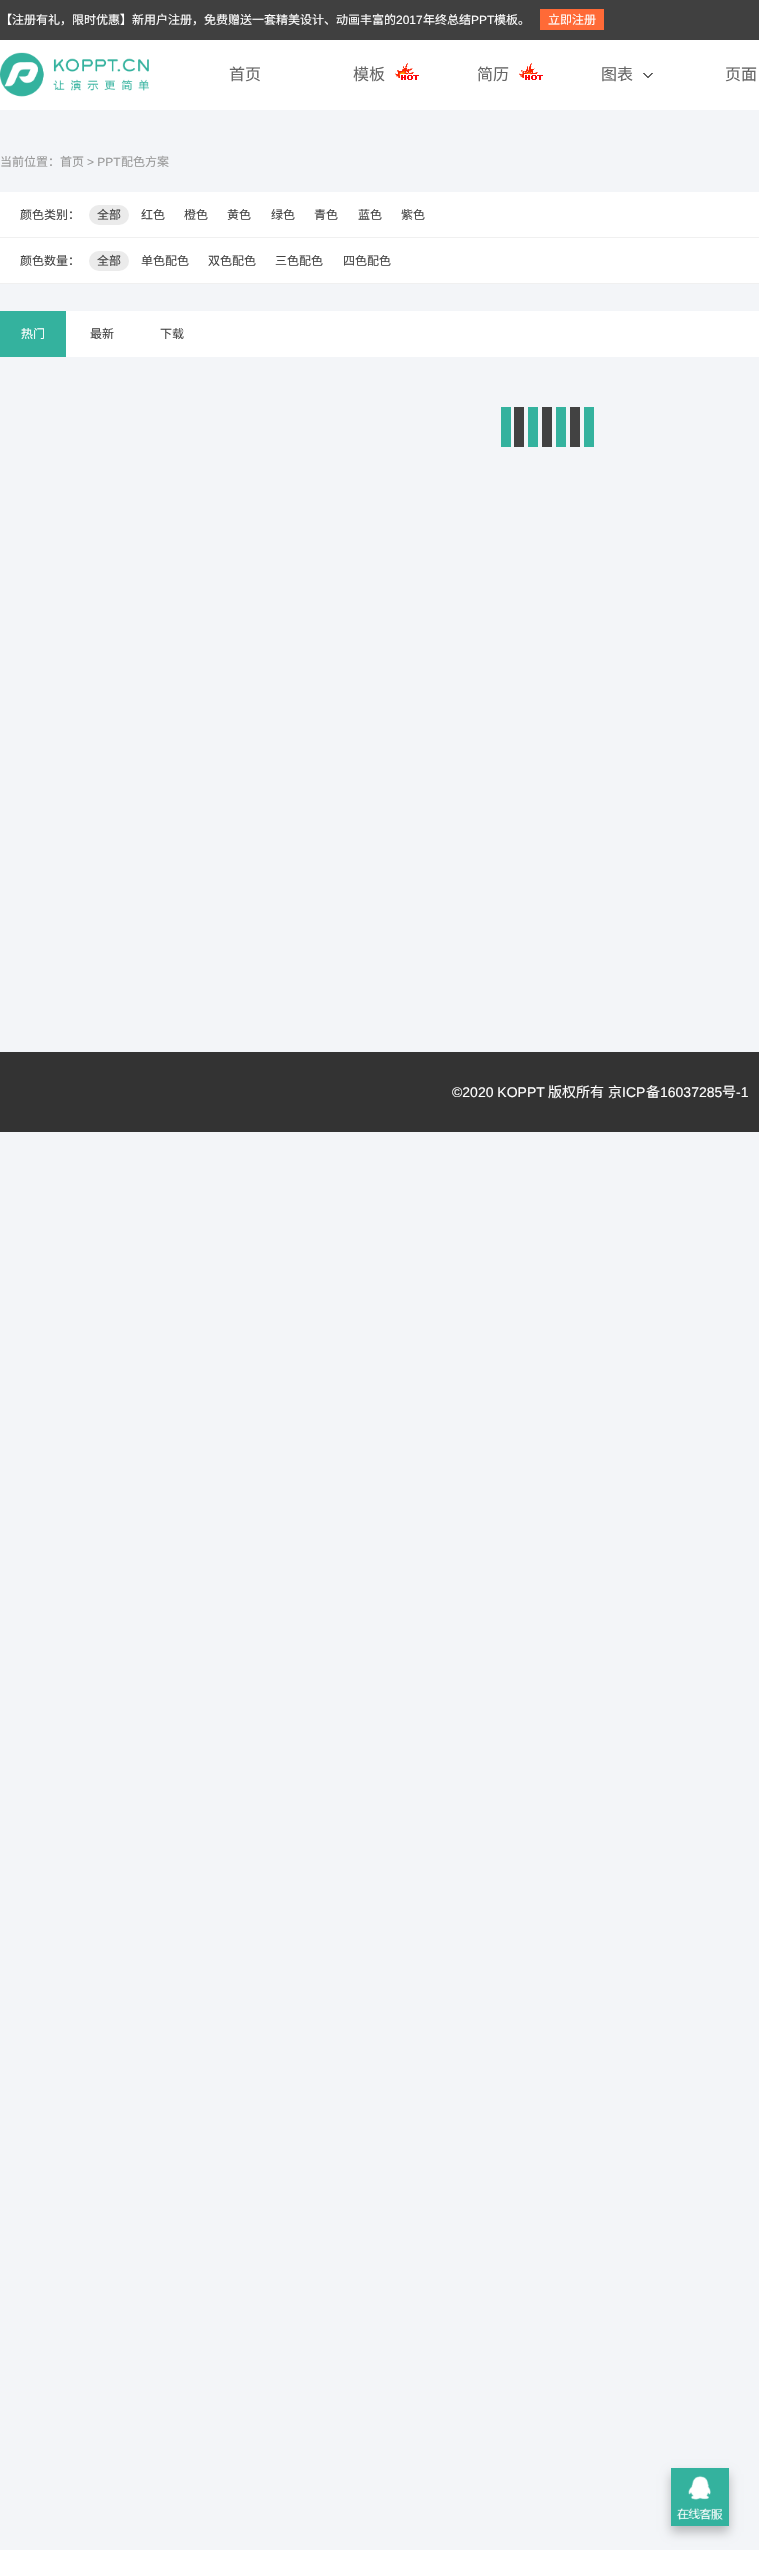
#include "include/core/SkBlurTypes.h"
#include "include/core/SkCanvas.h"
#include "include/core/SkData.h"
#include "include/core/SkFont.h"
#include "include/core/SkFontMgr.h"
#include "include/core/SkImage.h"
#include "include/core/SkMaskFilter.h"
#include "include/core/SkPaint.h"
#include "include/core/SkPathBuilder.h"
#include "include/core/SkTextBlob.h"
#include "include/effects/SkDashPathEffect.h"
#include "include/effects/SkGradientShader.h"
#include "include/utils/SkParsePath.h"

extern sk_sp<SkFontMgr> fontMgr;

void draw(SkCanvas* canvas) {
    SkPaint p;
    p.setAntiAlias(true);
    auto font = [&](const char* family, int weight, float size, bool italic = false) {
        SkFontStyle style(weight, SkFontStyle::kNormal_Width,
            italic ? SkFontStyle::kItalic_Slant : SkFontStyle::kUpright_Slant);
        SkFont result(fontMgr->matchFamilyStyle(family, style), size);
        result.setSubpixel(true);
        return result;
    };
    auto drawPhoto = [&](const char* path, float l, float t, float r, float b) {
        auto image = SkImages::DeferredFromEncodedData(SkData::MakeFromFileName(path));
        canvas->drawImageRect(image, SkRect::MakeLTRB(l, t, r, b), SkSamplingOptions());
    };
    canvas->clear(0xFFF3F5F8);
    p.setColor(0xFF404040);
    canvas->drawRect(SkRect::MakeLTRB(0, 0, 759, 40), p);
    auto font1 = font("Noto Sans CJK SC", 400, 12);
    p.setColor(0xFFFFFFFF);
    canvas->drawString("【注册有礼，限时优惠】新用户注册，免费赠送一套精美设计、动画丰富的", 0, 24, font1, p);
    auto font2 = font("Liberation Sans", 400, 12);
    canvas->drawString("2017", 396, 24, font2, p);
    canvas->drawString("年终总结", 423, 24, font1, p);
    canvas->drawString("PPT", 471, 24, font2, p);
    canvas->drawString("模板。", 494, 24, font1, p);
    p.setColor(0xFFFF6A37);
    canvas->drawRect(SkRect::MakeLTRB(540, 9, 604, 30), p);
    p.setColor(0xFFFFFFFF);
    canvas->drawString("立即注册", 548, 24, font1, p);
    canvas->drawRect(SkRect::MakeLTRB(0, 40, 759, 110), p);
    drawPhoto("media/1.png", 0, 52, 149, 97);
    auto font3 = font("Noto Sans CJK SC", 400, 16);
    p.setColor(0xFF666666);
    canvas->drawString("首页", 229, 80, font3, p);
    drawPhoto("media/2.png", 395, 63, 419, 80);
    canvas->drawString("模板", 353, 80, font3, p);
    drawPhoto("media/3.png", 519, 63, 543, 80);
    canvas->drawString("简历", 477, 80, font3, p);
    canvas->drawString("图表", 601, 80, font3, p);
    drawPhoto("media/4.png", 643, 73, 653, 78);
    canvas->drawString("页面", 725, 80, font3, p);
    p.setColor(0xFF999999);
    canvas->drawString("当前位置：首页", 0, 166, font1, p);
    canvas->drawString("> PPT", 87, 166, font2, p);
    canvas->drawString("配色方案", 121, 166, font1, p);
    p.setColor(0xFFFFFFFF);
    canvas->drawRect(SkRect::MakeLTRB(0, 192, 759, 283), p);
    p.setColor(0xFFF0F0F0);
    canvas->drawRect(SkRect::MakeLTRB(0, 237, 759, 238), p);
    p.setColor(0xFF444444);
    canvas->drawString("颜色类别：", 20, 219, font1, p);
    p.setColor(0xFFEBEBEB);
    canvas->drawRoundRect(SkRect::MakeLTRB(89, 205, 129, 225), 10, 10, p);
    p.setColor(0xFF444444);
    {
        const struct { const char* s; float x, y; } items[] = {
            {"全部", 97, 219},
            {"红色", 141, 219},
            {"橙色", 184, 219},
            {"黄色", 227, 219},
            {"绿色", 271, 219},
            {"青色", 314, 219},
            {"蓝色", 358, 219},
            {"紫色", 401, 219},
        };
        for (auto [s, x, y] : items) {
            canvas->drawString(s, x, y, font1, p);
        }
    }
    p.setColor(0xFFF0F0F0);
    canvas->drawRect(SkRect::MakeLTRB(0, 283, 759, 284), p);
    p.setColor(0xFF444444);
    canvas->drawString("颜色数量：", 20, 265, font1, p);
    p.setColor(0xFFEBEBEB);
    canvas->drawRoundRect(SkRect::MakeLTRB(89, 251, 129, 271), 10, 10, p);
    p.setColor(0xFF444444);
    {
        const struct { const char* s; float x, y; } items[] = {
            {"全部", 97, 265},
            {"单色配色", 141, 265},
            {"双色配色", 208, 265},
            {"三色配色", 275, 265},
            {"四色配色", 343, 265},
        };
        for (auto [s, x, y] : items) {
            canvas->drawString(s, x, y, font1, p);
        }
    }
    p.setColor(0xFFFFFFFF);
    canvas->drawRect(SkRect::MakeLTRB(66, 311, 759, 357), p);
    p.setColor(0xFF34B29E);
    canvas->drawRect(SkRect::MakeLTRB(0, 311, 66, 357), p);
    p.setColor(0xFFFFFFFF);
    canvas->drawString("热门", 21, 338, font1, p);
    p.setColor(0xFF444444);
    canvas->drawString("最新", 90, 338, font1, p);
    canvas->drawString("下载", 160, 338, font1, p);
    {
        const struct { float l, t, r, b; SkColor color; } items[] = {
            {501, 407, 511, 447, 0xFF34B29E},
            {514, 407, 524, 447, 0xFF424242},
            {528, 407, 538, 447, 0xFF34B29E},
            {542, 407, 552, 447, 0xFF424242},
            {556, 407, 566, 447, 0xFF34B29E},
            {570, 407, 580, 447, 0xFF424242},
            {584, 407, 594, 447, 0xFF34B29E},
            {0, 1052, 759, 1132, 0xFF333333},
        };
        for (auto [l, t, r, b, color] : items) {
            p.setColor(color);
            canvas->drawRect(SkRect::MakeLTRB(l, t, r, b), p);
        }
    }
    auto font4 = font("Liberation Sans", 400, 14);
    p.setColor(0xFFFFFFFF);
    canvas->drawString("©2020 KOPPT", 452, 1097, font4, p);
    auto font5 = font("Noto Sans CJK SC", 400, 14);
    canvas->drawString("版权所有", 548, 1097, font5, p);
    canvas->drawString("京", 608, 1097, font5, p);
    canvas->drawString("ICP", 622, 1097, font4, p);
    canvas->drawString("备", 646, 1097, font5, p);
    canvas->drawString("16037285", 660, 1097, font4, p);
    canvas->drawString("号", 722, 1097, font5, p);
    canvas->drawString("-1", 736, 1097, font4, p);
    p.setColor(0x40000000);
    p.setMaskFilter(SkMaskFilter::MakeBlur(kNormal_SkBlurStyle, 5));
    canvas->drawRect(SkRect::MakeLTRB(671, 2474, 729, 2532), p);
    p.setMaskFilter(nullptr);
    p.setColor(0xFF34B29E);
    canvas->drawRect(SkRect::MakeLTRB(671, 2468, 729, 2526), p);
    drawPhoto("media/5.png", 676, 2475, 723, 2520);
}
